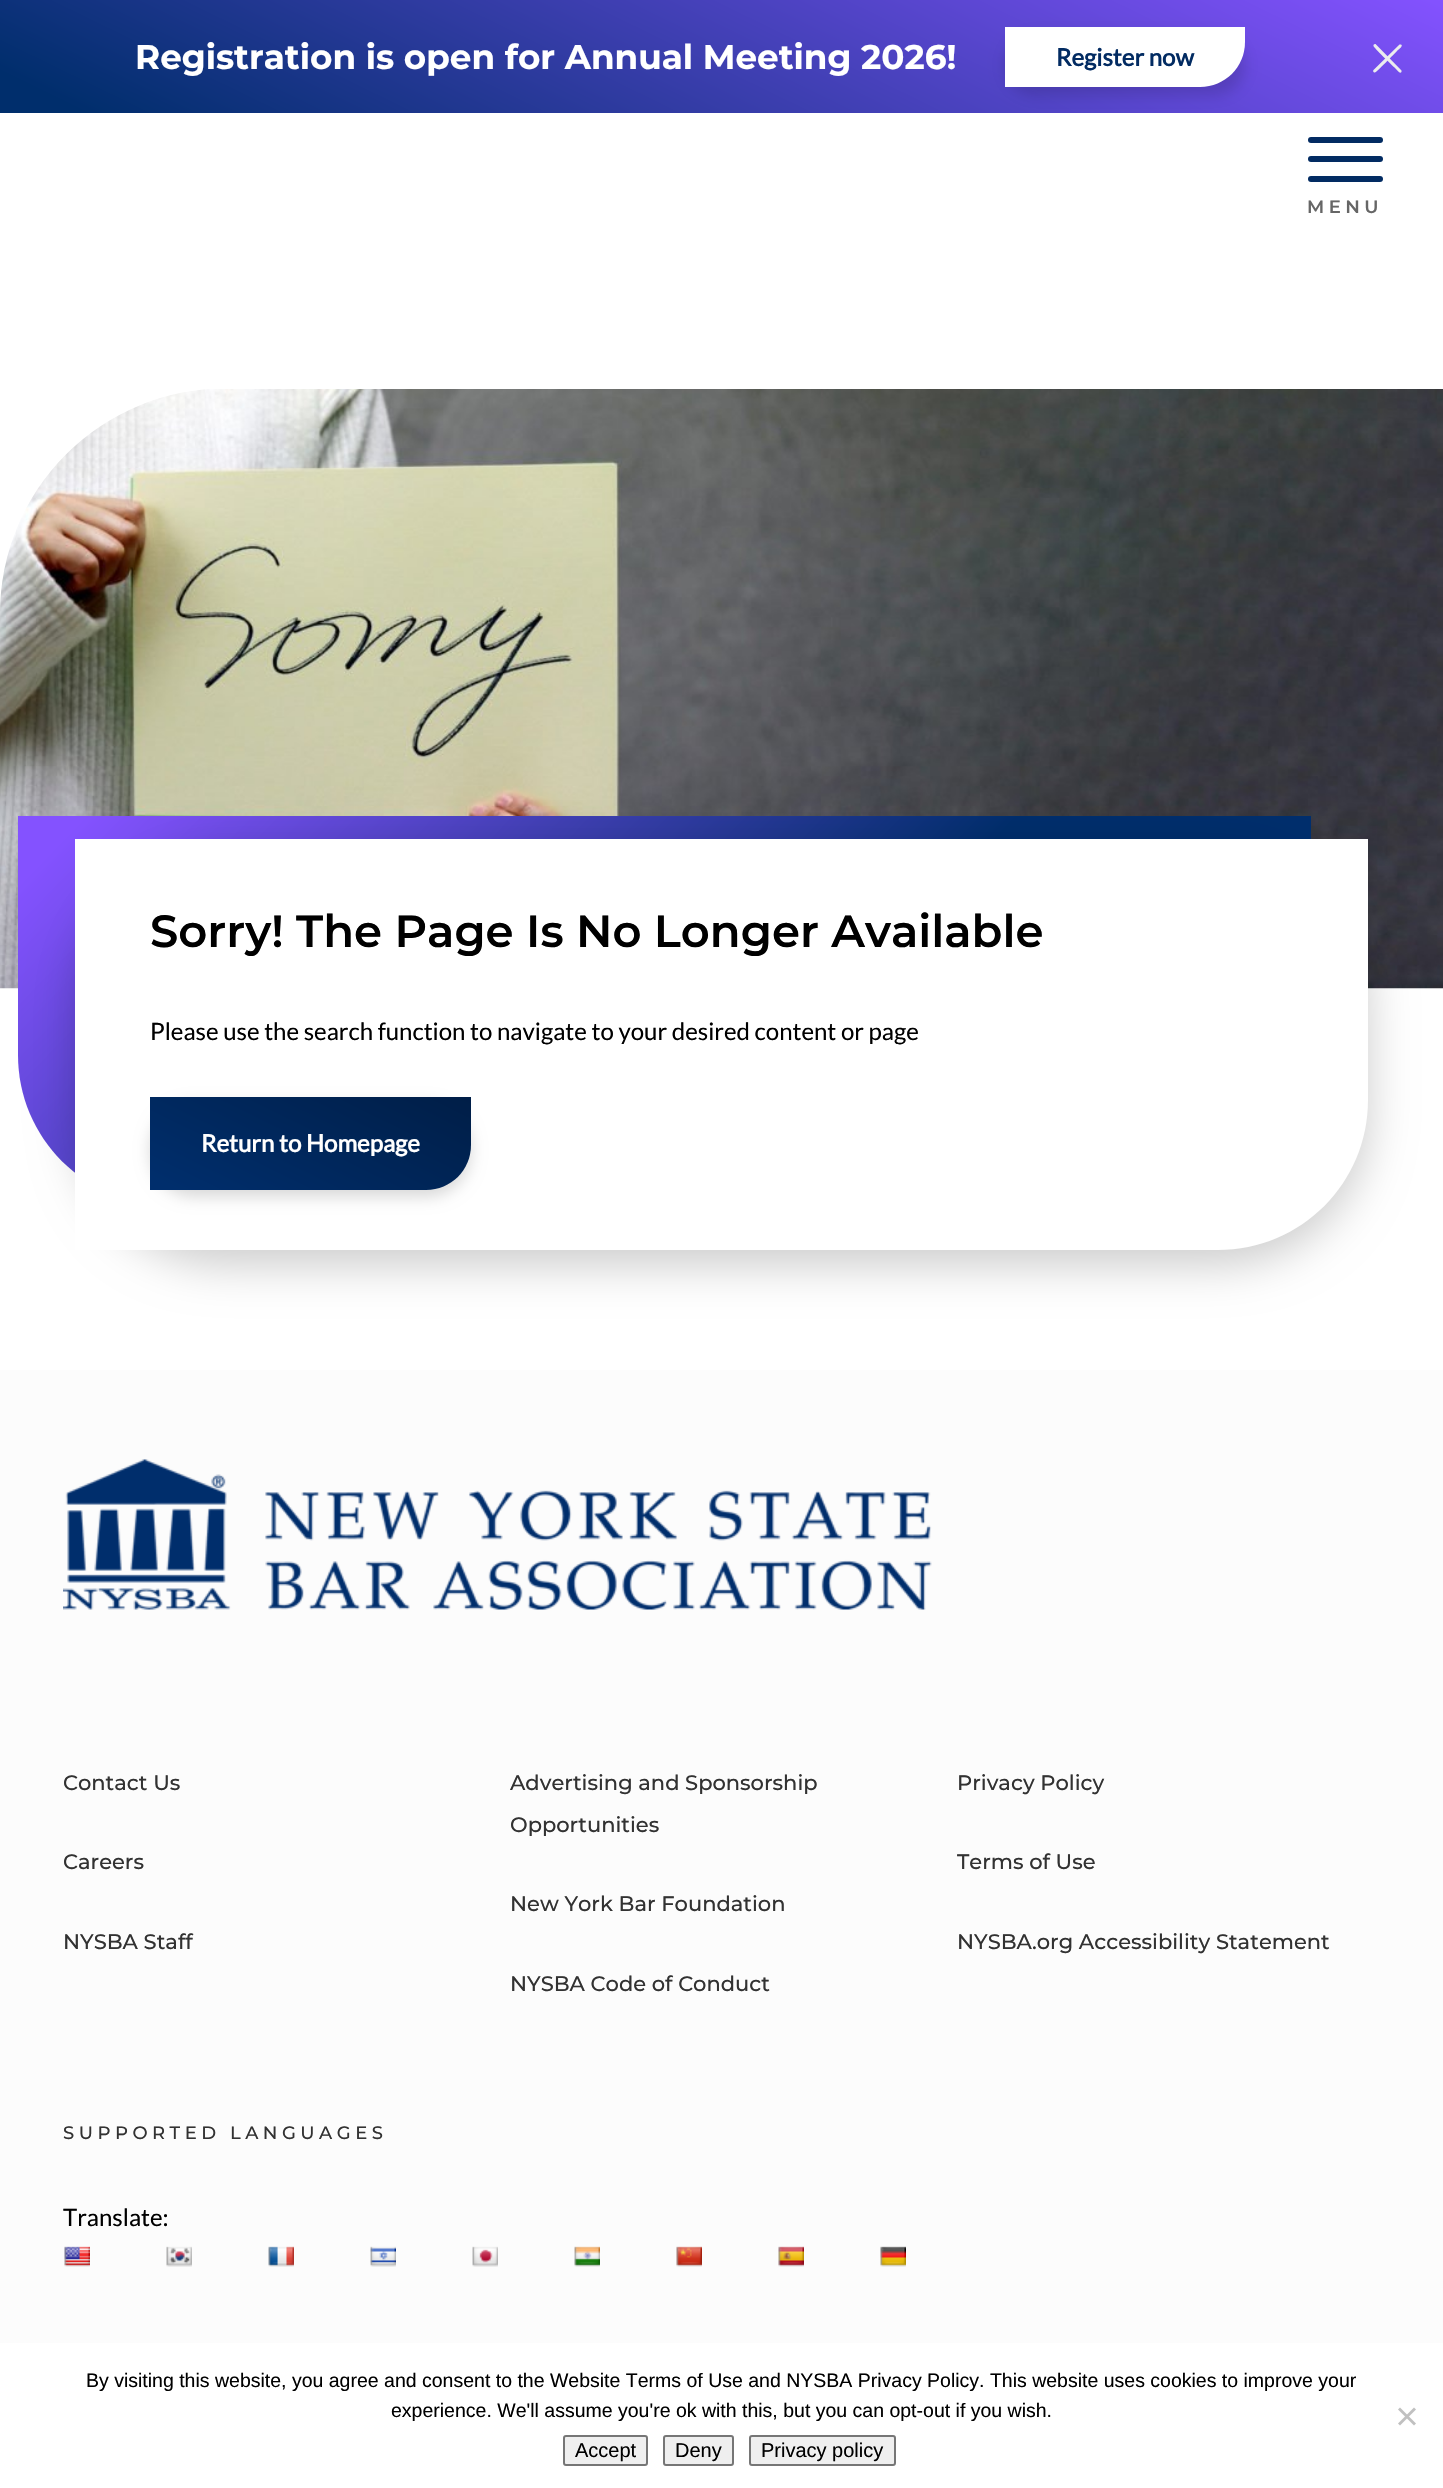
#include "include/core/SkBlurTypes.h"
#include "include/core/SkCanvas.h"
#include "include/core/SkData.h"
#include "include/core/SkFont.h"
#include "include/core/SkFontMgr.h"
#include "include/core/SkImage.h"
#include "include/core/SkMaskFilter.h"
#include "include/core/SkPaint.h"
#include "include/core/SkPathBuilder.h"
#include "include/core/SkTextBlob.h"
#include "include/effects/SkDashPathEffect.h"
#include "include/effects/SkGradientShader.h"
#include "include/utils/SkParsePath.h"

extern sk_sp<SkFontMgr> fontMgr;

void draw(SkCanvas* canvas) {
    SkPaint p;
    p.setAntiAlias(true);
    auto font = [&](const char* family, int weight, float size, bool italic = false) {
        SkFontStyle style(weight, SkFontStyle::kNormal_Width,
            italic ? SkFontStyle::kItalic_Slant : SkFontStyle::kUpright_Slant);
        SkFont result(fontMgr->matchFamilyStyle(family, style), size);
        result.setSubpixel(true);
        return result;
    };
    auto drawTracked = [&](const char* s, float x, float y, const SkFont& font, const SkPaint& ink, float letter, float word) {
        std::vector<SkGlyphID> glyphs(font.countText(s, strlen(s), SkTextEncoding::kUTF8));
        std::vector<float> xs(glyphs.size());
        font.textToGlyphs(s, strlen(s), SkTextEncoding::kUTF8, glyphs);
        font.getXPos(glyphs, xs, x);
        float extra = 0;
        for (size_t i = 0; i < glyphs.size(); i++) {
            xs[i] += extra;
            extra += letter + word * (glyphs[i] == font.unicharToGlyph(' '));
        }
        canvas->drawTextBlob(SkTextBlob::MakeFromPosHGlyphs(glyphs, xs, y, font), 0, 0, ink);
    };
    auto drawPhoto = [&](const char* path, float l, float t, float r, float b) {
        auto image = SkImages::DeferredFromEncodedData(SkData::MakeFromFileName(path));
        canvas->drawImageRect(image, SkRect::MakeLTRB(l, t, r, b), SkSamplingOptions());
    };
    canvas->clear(0xFFFFFFFF);
    {
        const SkColor colors[] = {0xFF8452FF, 0xFF002E6C};
        const float stops[] = {0, 0.95f};
        const SkPoint ends[] = {{882, -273}, {561, 386}};
        p.setShader(SkGradientShader::MakeLinear(ends, colors, stops, 2, SkTileMode::kClamp));
        p.setAlpha(255);
    }
    canvas->drawRect(SkRect::MakeLTRB(0, 0, 1443, 113), p);
    auto font1 = font("Montserrat", 700, 34.2f);
    p.setShader(nullptr);
    p.setColor(0xFFFFFFFF);
    canvas->drawString("Registration is open for Annual Meeting 2026!", 135, 69, font1, p);
    p.setColor(0x26000000);
    p.setMaskFilter(SkMaskFilter::MakeBlur(kNormal_SkBlurStyle, 7.5f));
    canvas->drawRoundRect(SkRect::MakeLTRB(1005, 35, 1245, 95), 45, 45, p);
    p.setMaskFilter(nullptr);
    p.setColor(0xFFFFFFFF);
    canvas->drawPath(SkPathBuilder().moveTo(1005, 27).lineTo(1245, 27).lineTo(1245, 42).cubicTo(1245, 67, 1225, 87, 1200, 87).lineTo(1005, 87).close().detach(), p);
    auto font2 = font("Lato", 700, 24);
    p.setColor(0xFF022B62);
    canvas->drawString("Register now", 1056, 66, font2, p);
    p.setColor(0xFFEBECEE);
    canvas->drawPath(SkPathBuilder().moveTo(1376, 44.5f).lineTo(1401.5f, 70.5f).lineTo(1401.5f, 72).cubicTo(1400, 74.5f, 1397.5f, 70.5f, 1395, 68).cubicTo(1392.5f, 65.5f, 1373.5f, 47.5f, 1373.5f, 46).cubicTo(1373, 44.5f, 1375, 43.5f, 1376, 44.5f).close().detach(), p);
    canvas->drawPath(SkPathBuilder().moveTo(1373.5f, 70).lineTo(1399.5f, 44.5f).lineTo(1401, 44.5f).cubicTo(1403.5f, 46, 1399.5f, 48.5f, 1397, 51).cubicTo(1394.5f, 53.5f, 1376.5f, 72.5f, 1375, 72.5f).cubicTo(1373.5f, 73, 1372.5f, 71, 1373.5f, 70).close().detach(), p);
    p.setColor(0xFF022B62);
    canvas->drawRoundRect(SkRect::MakeLTRB(1308, 156, 1383, 162), 3, 3, p);
    canvas->drawRoundRect(SkRect::MakeLTRB(1308, 137, 1383, 143), 3, 3, p);
    canvas->drawRoundRect(SkRect::MakeLTRB(1308, 176, 1383, 182), 3, 3, p);
    auto font3 = font("Montserrat", 600, 18);
    p.setColor(0xFF666666);
    drawTracked("MENU", 1307, 213, font3, p, 4.5f, 0);
    drawPhoto("media/1.png", 0, 389, 1443, 989);
    {
        const SkColor colors[] = {0xFF002E6C, 0xFF8452FF};
        const float stops[] = {0.4f, 0.96f};
        const SkPoint ends[] = {{1096, 1427}, {233, 593}};
        p.setShader(SkGradientShader::MakeLinear(ends, colors, stops, 2, SkTileMode::kClamp));
        p.setAlpha(255);
    }
    canvas->drawPath(SkPathBuilder().moveTo(18, 816).lineTo(1311, 816).lineTo(1311, 1205).lineTo(168, 1205).cubicTo(85, 1205, 18, 1138, 18, 1055).close().detach(), p);
    p.setShader(nullptr);
    p.setColor(0x33000000);
    p.setMaskFilter(SkMaskFilter::MakeBlur(kNormal_SkBlurStyle, 22.5f));
    canvas->drawRoundRect(SkRect::MakeLTRB(75, 854, 1368, 1265), 150, 150, p);
    p.setMaskFilter(nullptr);
    p.setColor(0xFFFFFFFF);
    canvas->drawPath(SkPathBuilder().moveTo(75, 839).lineTo(1368, 839).lineTo(1368, 1100).cubicTo(1368, 1183, 1301, 1250, 1218, 1250).lineTo(75, 1250).close().detach(), p);
    auto font4 = font("Montserrat", 600, 45);
    p.setColor(0xFF000000);
    canvas->drawString("Sorry! The Page Is No Longer Available", 150, 947, font4, p);
    auto font5 = font("Lato", 400, 24);
    canvas->drawString("Please use the search function to navigate to your desired content or page", 150, 1040, font5, p);
    p.setColor(0x26000000);
    p.setMaskFilter(SkMaskFilter::MakeBlur(kNormal_SkBlurStyle, 7.5f));
    canvas->drawRoundRect(SkRect::MakeLTRB(150, 1104, 471, 1197), 45, 45, p);
    p.setMaskFilter(nullptr);
    {
        const SkColor colors[] = {0xFF001E47, 0xFF002E6C};
        const float stops[] = {0, 0.95f};
        const SkPoint ends[] = {{360, 1042}, {261, 1244}};
        p.setShader(SkGradientShader::MakeLinear(ends, colors, stops, 2, SkTileMode::kClamp));
        p.setAlpha(255);
    }
    canvas->drawPath(SkPathBuilder().moveTo(150, 1097).lineTo(471, 1097).lineTo(471, 1145).cubicTo(471, 1170, 451, 1190, 426, 1190).lineTo(150, 1190).close().detach(), p);
    p.setShader(nullptr);
    p.setColor(0xFFFFFFFF);
    canvas->drawString("Return to Homepage", 201, 1152, font2, p);
    p.setColor(0xFFFCFCFC);
    canvas->drawRect(SkRect::MakeLTRB(0, 1370, 1443, 2343), p);
    drawPhoto("media/2.png", 63, 1459, 932, 1610);
    auto font6 = font("Montserrat", 500, 21);
    p.setColor(0xFF323232);
    {
        const struct { const char* s; float x, y; } items[] = {
            {"Contact Us", 63, 1790},
            {"Careers", 63, 1869},
            {"NYSBA Staff", 63, 1949},
            {"Advertising and Sponsorship", 510, 1790},
            {"Opportunities", 510, 1832},
            {"New York Bar Foundation", 510, 1911},
            {"NYSBA Code of Conduct", 510, 1991},
            {"Privacy Policy", 957, 1790},
            {"Terms of Use", 957, 1869},
            {"NYSBA.org Accessibility Statement", 957, 1949},
        };
        for (auto [s, x, y] : items) {
            canvas->drawString(s, x, y, font6, p);
        }
    }
    auto font7 = font("Montserrat", 500, 18);
    drawTracked("SUPPORTED LANGUAGES", 63, 2139, font7, p, 4.5f, 0);
    p.setColor(0xFF000000);
    canvas->drawString("Translate:", 63, 2226, font5, p);
    drawPhoto("media/3.png", 64, 2246, 90, 2267);
    drawPhoto("media/4.png", 166, 2246, 192, 2267);
    drawPhoto("media/5.png", 268, 2246, 294, 2267);
    drawPhoto("media/6.png", 370, 2246, 396, 2267);
    drawPhoto("media/7.png", 472, 2246, 498, 2267);
    drawPhoto("media/8.png", 574, 2246, 600, 2267);
    drawPhoto("media/9.png", 676, 2246, 702, 2267);
    drawPhoto("media/10.png", 778, 2246, 804, 2267);
    drawPhoto("media/11.png", 880, 2246, 906, 2267);
    auto font8 = font("Liberation Sans", 400, 19.5f);
    canvas->drawString("By visiting this website, you agree and consent to the Website Terms of Use and NYSBA Privacy Policy. This website uses cookies to improve your", 86, 2387, font8, p);
    canvas->drawString("experience. We'll assume you're ok with this, but you can opt-out if you wish.", 391, 2417, font8, p);
    p.setColor(0xFFC0C0C0);
    canvas->drawPath(SkPathBuilder().moveTo(1414, 2407.5f).lineTo(1416, 2409.5f).lineTo(1400, 2425.5f).lineTo(1398, 2423.5f).close().detach(), p);
    canvas->drawPath(SkPathBuilder().moveTo(1398, 2409.5f).lineTo(1400, 2407.5f).lineTo(1416, 2423.5f).lineTo(1414, 2425.5f).close().detach(), p);
    p.setColor(0xFFEFEFEF);
    canvas->drawRoundRect(SkRect::MakeLTRB(564, 2436, 647, 2465), 2, 2, p);
    p.setStyle(SkPaint::kStroke_Style);
    p.setStrokeWidth(2);
    p.setColor(0xFF767676);
    canvas->drawRoundRect(SkRect::MakeLTRB(564, 2436, 647, 2465), 2, 2, p);
    auto font9 = font("Liberation Sans", 400, 20);
    p.setStyle(SkPaint::kFill_Style);
    p.setColor(0xFF000000);
    canvas->drawString("Accept", 575, 2457, font9, p);
    p.setColor(0xFFEFEFEF);
    canvas->drawRoundRect(SkRect::MakeLTRB(664, 2436, 733, 2465), 2, 2, p);
    p.setStyle(SkPaint::kStroke_Style);
    p.setColor(0xFF767676);
    canvas->drawRoundRect(SkRect::MakeLTRB(664, 2436, 733, 2465), 2, 2, p);
    p.setStyle(SkPaint::kFill_Style);
    p.setColor(0xFF000000);
    canvas->drawString("Deny", 675, 2457, font9, p);
    p.setColor(0xFFEFEFEF);
    canvas->drawRoundRect(SkRect::MakeLTRB(750, 2436, 895, 2465), 2, 2, p);
    p.setStyle(SkPaint::kStroke_Style);
    p.setColor(0xFF767676);
    canvas->drawRoundRect(SkRect::MakeLTRB(750, 2436, 895, 2465), 2, 2, p);
    p.setStyle(SkPaint::kFill_Style);
    p.setColor(0xFF000000);
    canvas->drawString("Privacy policy", 761, 2457, font9, p);
}
